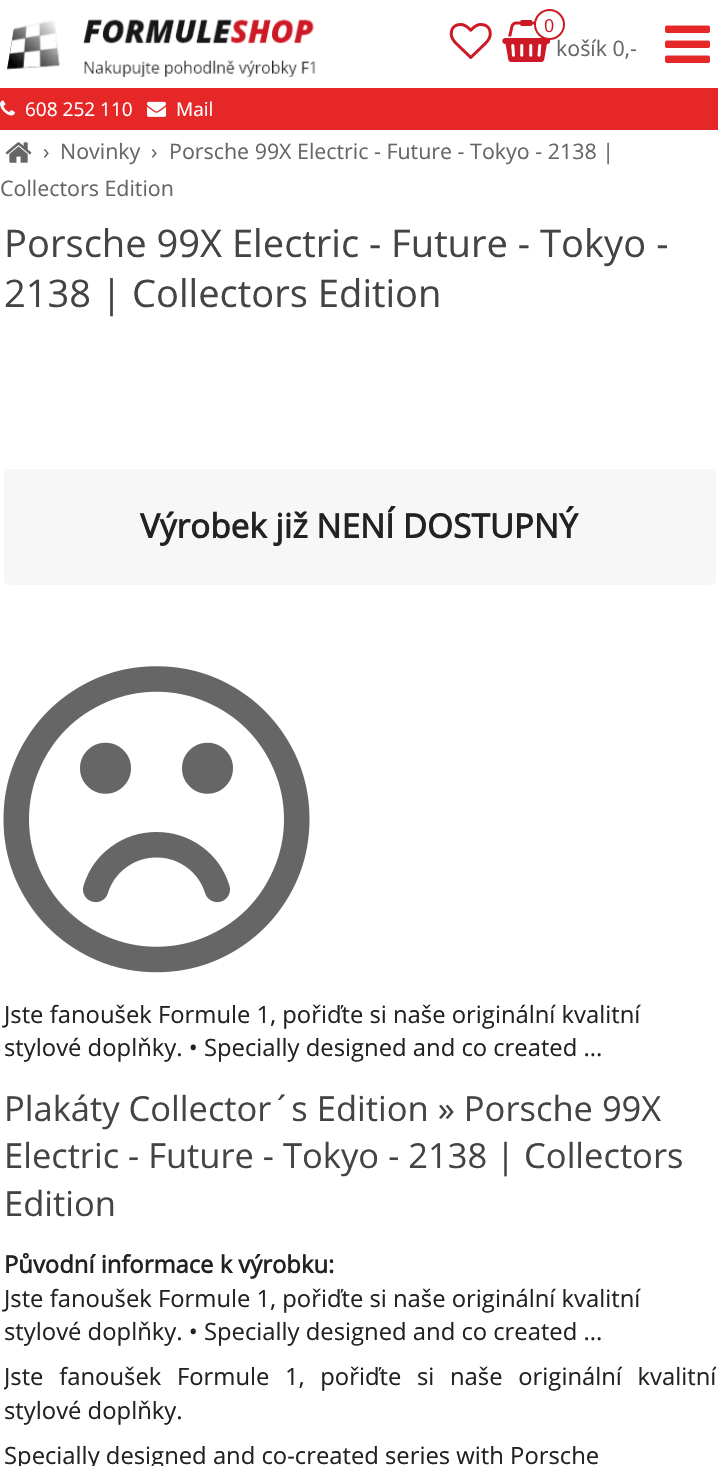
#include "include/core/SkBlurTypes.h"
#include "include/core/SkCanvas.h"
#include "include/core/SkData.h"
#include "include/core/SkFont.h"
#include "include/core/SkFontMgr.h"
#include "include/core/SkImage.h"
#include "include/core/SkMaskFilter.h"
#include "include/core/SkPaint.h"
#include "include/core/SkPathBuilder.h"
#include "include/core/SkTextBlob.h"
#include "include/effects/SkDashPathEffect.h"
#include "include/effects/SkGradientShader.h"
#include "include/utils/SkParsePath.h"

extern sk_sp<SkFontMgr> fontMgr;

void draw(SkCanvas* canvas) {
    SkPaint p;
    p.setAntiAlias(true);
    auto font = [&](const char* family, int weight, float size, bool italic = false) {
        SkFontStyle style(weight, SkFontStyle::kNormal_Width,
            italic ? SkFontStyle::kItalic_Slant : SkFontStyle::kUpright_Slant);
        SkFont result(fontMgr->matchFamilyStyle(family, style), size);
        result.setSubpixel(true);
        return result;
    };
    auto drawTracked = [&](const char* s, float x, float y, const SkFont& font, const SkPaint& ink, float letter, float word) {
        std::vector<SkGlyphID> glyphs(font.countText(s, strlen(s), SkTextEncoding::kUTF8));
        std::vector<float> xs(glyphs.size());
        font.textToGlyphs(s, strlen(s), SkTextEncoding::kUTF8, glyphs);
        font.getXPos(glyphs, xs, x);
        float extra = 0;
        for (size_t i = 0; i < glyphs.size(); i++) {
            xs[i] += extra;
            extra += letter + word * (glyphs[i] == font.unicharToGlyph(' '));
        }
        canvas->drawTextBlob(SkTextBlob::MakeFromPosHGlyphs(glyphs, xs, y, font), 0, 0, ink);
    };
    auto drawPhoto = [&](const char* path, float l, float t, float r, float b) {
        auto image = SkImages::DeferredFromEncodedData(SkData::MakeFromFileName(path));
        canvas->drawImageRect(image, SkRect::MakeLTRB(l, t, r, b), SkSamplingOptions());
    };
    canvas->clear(0xFFFFFFFF);
    drawPhoto("media/1.png", 7, 19, 316, 77);
    drawPhoto("media/2.png", 449, 23, 492, 59);
    drawPhoto("media/3.png", 502, 20, 551, 62);
    auto font1 = font("Open Sans", 400, 21.4f);
    p.setColor(0xFF666666);
    canvas->drawString("košík 0,-", 556, 56, font1, p);
    p.setColor(0xFFFFFFFF);
    canvas->drawCircle(549.5f, 24.5f, 14.5f, p);
    p.setStyle(SkPaint::kStroke_Style);
    p.setStrokeWidth(2);
    p.setColor(0xFFCC1925);
    canvas->drawCircle(549.5f, 24.5f, 14.5f, p);
    auto font2 = font("Open Sans", 400, 18);
    p.setStyle(SkPaint::kFill_Style);
    canvas->drawString("0", 544, 32, font2, p);
    drawPhoto("media/4.png", 665, 25, 710, 63);
    p.setColor(0xFFE52727);
    canvas->drawRect(SkRect::MakeLTRB(0, 88, 718, 130), p);
    drawPhoto("media/5.png", 0, 100, 15, 116);
    auto font3 = font("Open Sans", 400, 19);
    p.setColor(0xFFFFFFFF);
    canvas->drawString("608 252 110", 25, 116, font3, p);
    drawPhoto("media/6.png", 147, 101, 167, 117);
    canvas->drawString("Mail", 176, 116, font3, p);
    drawPhoto("media/7.png", 5, 142, 32, 163);
    p.setColor(0xFF666666);
    {
        const struct { const char* s; float x, y; } items[] = {
            {"›", 43, 159},
            {"Novinky", 60, 159},
            {"›", 151, 159},
            {"Porsche 99X Electric - Future - Tokyo - 2138 |", 169, 159},
            {"Collectors Edition", 0, 196},
        };
        for (auto [s, x, y] : items) {
            canvas->drawString(s, x, y, font1, p);
        }
    }
    auto font4 = font("Open Sans", 400, 38.1f);
    p.setColor(0xFF444444);
    canvas->drawString("Porsche 99X Electric - Future - Tokyo -", 4, 257, font4, p);
    canvas->drawString("2138 | Collectors Edition", 4, 307, font4, p);
    p.setColor(0xFFF7F7F7);
    canvas->drawRoundRect(SkRect::MakeLTRB(4, 469, 716, 585), 5, 5, p);
    auto font5 = font("Open Sans", 700, 33.25f);
    p.setColor(0xFF222222);
    canvas->drawString("Výrobek již NENÍ DOSTUPNÝ", 140, 538, font5, p);
    drawPhoto("media/8.png", 3, 666, 310, 973);
    auto font6 = font("Open Sans", 400, 23.8f);
    canvas->drawString("Jste fanoušek Formule 1, pořiďte si naše originální kvalitní", 4, 1023, font6, p);
    canvas->drawString("stylové doplňky. • Specially designed and co created ...", 4, 1056, font6, p);
    auto font7 = font("Open Sans", 400, 34.5f);
    p.setColor(0xFF444444);
    {
        const struct { const char* s; float x, y; } items[] = {
            {"Plakáty Collector´s Edition » Porsche 99X", 4, 1121},
            {"Electric - Future - Tokyo - 2138 | Collectors", 4, 1168},
            {"Edition", 4, 1216},
        };
        for (auto [s, x, y] : items) {
            canvas->drawString(s, x, y, font7, p);
        }
    }
    auto font8 = font("Open Sans", 700, 23.8f);
    p.setColor(0xFF222222);
    canvas->drawString("Původní informace k výrobku:", 4, 1273, font8, p);
    canvas->drawString("Jste fanoušek Formule 1, pořiďte si naše originální kvalitní", 4, 1307, font6, p);
    canvas->drawString("stylové doplňky. • Specially designed and co created ...", 4, 1340, font6, p);
    canvas->save();
    canvas->clipRect(SkRect::MakeLTRB(4, 1348, 716, 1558));
    drawTracked("Jste fanoušek Formule 1, pořiďte si naše originální kvalitní", 4, 1385, font6, p, 0, 9.5f);
    canvas->restore();
    canvas->drawString("stylové doplňky.", 4, 1419, font6, p);
    canvas->drawString("Specially designed and co-created series with Porsche", 4, 1464, font6, p);
}
